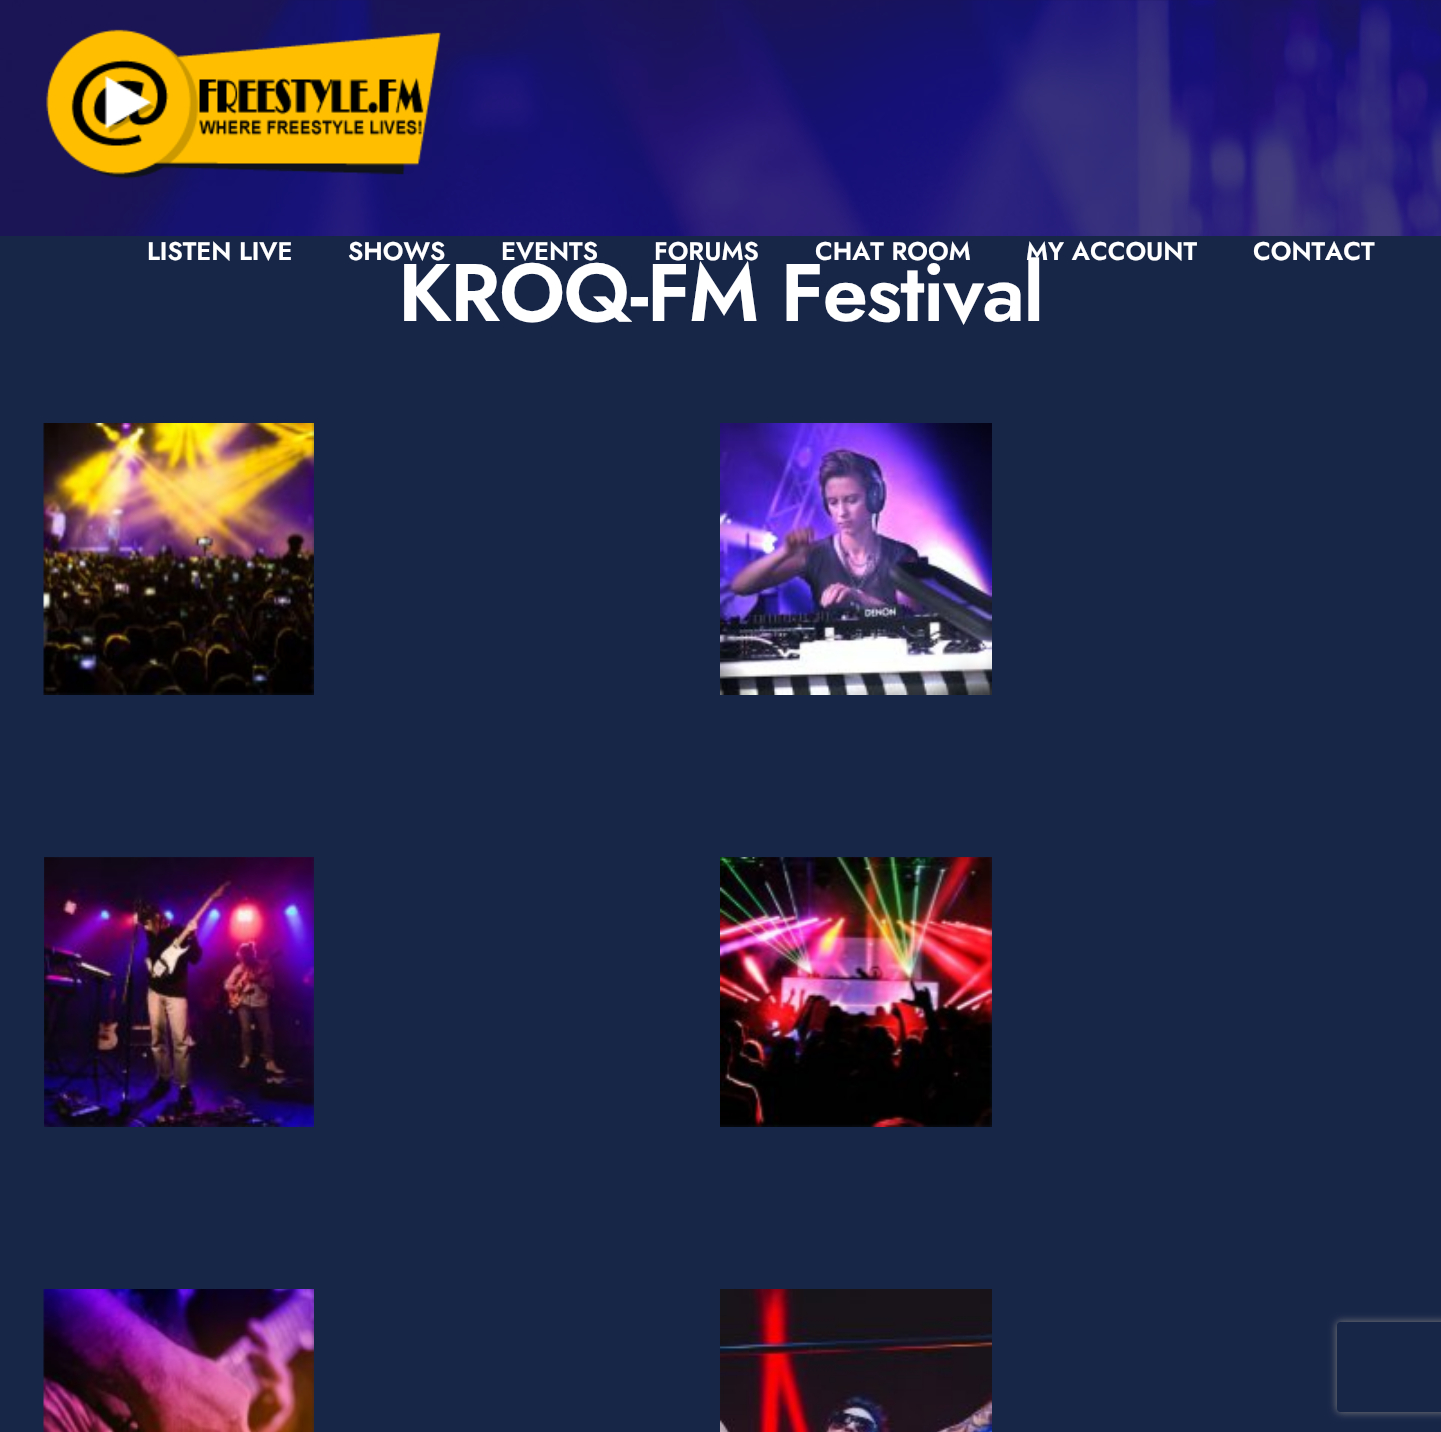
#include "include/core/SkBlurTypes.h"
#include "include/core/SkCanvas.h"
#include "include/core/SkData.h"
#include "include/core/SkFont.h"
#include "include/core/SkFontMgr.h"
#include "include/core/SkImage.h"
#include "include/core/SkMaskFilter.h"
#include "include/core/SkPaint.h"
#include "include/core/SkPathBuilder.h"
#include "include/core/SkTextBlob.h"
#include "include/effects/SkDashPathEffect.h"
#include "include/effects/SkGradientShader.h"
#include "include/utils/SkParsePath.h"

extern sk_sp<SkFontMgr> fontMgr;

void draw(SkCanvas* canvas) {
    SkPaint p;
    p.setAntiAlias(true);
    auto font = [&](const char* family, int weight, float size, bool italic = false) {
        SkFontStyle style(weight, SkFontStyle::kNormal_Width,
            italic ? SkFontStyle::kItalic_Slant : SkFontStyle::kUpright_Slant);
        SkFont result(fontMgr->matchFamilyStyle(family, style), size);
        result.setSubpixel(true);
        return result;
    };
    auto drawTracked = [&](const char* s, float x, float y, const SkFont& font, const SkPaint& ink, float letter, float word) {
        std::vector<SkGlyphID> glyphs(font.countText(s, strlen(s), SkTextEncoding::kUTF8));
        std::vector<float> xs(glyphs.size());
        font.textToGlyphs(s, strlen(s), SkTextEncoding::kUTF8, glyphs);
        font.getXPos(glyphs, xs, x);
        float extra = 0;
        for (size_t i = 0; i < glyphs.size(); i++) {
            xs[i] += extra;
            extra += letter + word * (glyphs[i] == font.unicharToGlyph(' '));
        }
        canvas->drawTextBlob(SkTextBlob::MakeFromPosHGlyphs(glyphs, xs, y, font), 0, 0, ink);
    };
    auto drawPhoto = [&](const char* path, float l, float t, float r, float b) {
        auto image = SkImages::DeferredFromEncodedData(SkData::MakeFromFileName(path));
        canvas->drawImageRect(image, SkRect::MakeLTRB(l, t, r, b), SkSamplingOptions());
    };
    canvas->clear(0xFFFFFFFF);
    drawPhoto("media/1.png", 0, 0, 1441, 236);
    p.setColor(0xCC191061);
    canvas->drawRect(SkRect::MakeLTRB(0, 0, 1441, 236), p);
    drawPhoto("media/2.png", 46, 29, 441, 179);
    p.setColor(0xFF172547);
    canvas->drawRect(SkRect::MakeLTRB(0, 236, 1441, 1432), p);
    auto font1 = font("Jost", 600, 25.5f);
    p.setColor(0xFFFFFFFF);
    {
        const struct { const char* s; float x, y; } items[] = {
            {"LISTEN LIVE", 147, 260},
            {"SHOWS", 348, 260},
            {"EVENTS", 501, 260},
            {"FORUMS", 654, 260},
            {"CHAT ROOM", 815, 260},
            {"MY ACCOUNT", 1026, 260},
            {"CONTACT", 1253, 260},
        };
        for (auto [s, x, y] : items) {
            canvas->drawString(s, x, y, font1, p);
        }
    }
    auto font2 = font("Jost", 600, 81.5f);
    drawTracked("KROQ-FM Festival", 398, 321, font2, p, -1.6f, 0);
    drawPhoto("media/3.png", 43, 423, 314, 695);
    drawPhoto("media/4.png", 720, 423, 992, 695);
    drawPhoto("media/5.png", 44, 857, 314, 1127);
    drawPhoto("media/6.png", 720, 857, 992, 1127);
    drawPhoto("media/7.png", 43, 1289, 314, 1432);
    drawPhoto("media/8.png", 720, 1289, 992, 1432);
    canvas->save();
    canvas->clipPath(SkPathBuilder(SkPathFillType::kEvenOdd).moveTo(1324, 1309).lineTo(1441, 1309).lineTo(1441, 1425).lineTo(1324, 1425).close().moveTo(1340, 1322).lineTo(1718, 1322).cubicTo(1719.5f, 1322, 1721, 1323.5f, 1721, 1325).lineTo(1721, 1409).cubicTo(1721, 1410.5f, 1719.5f, 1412, 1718, 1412).lineTo(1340, 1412).cubicTo(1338.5f, 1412, 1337, 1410.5f, 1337, 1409).lineTo(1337, 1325).cubicTo(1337, 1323.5f, 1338.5f, 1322, 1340, 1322).close().detach(), true);
    p.setColor(0xFF808080);
    p.setMaskFilter(SkMaskFilter::MakeBlur(kNormal_SkBlurStyle, 4));
    canvas->drawRoundRect(SkRect::MakeLTRB(1337, 1322, 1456, 1412), 3, 3, p);
    p.setMaskFilter(nullptr);
    canvas->restore();
}
